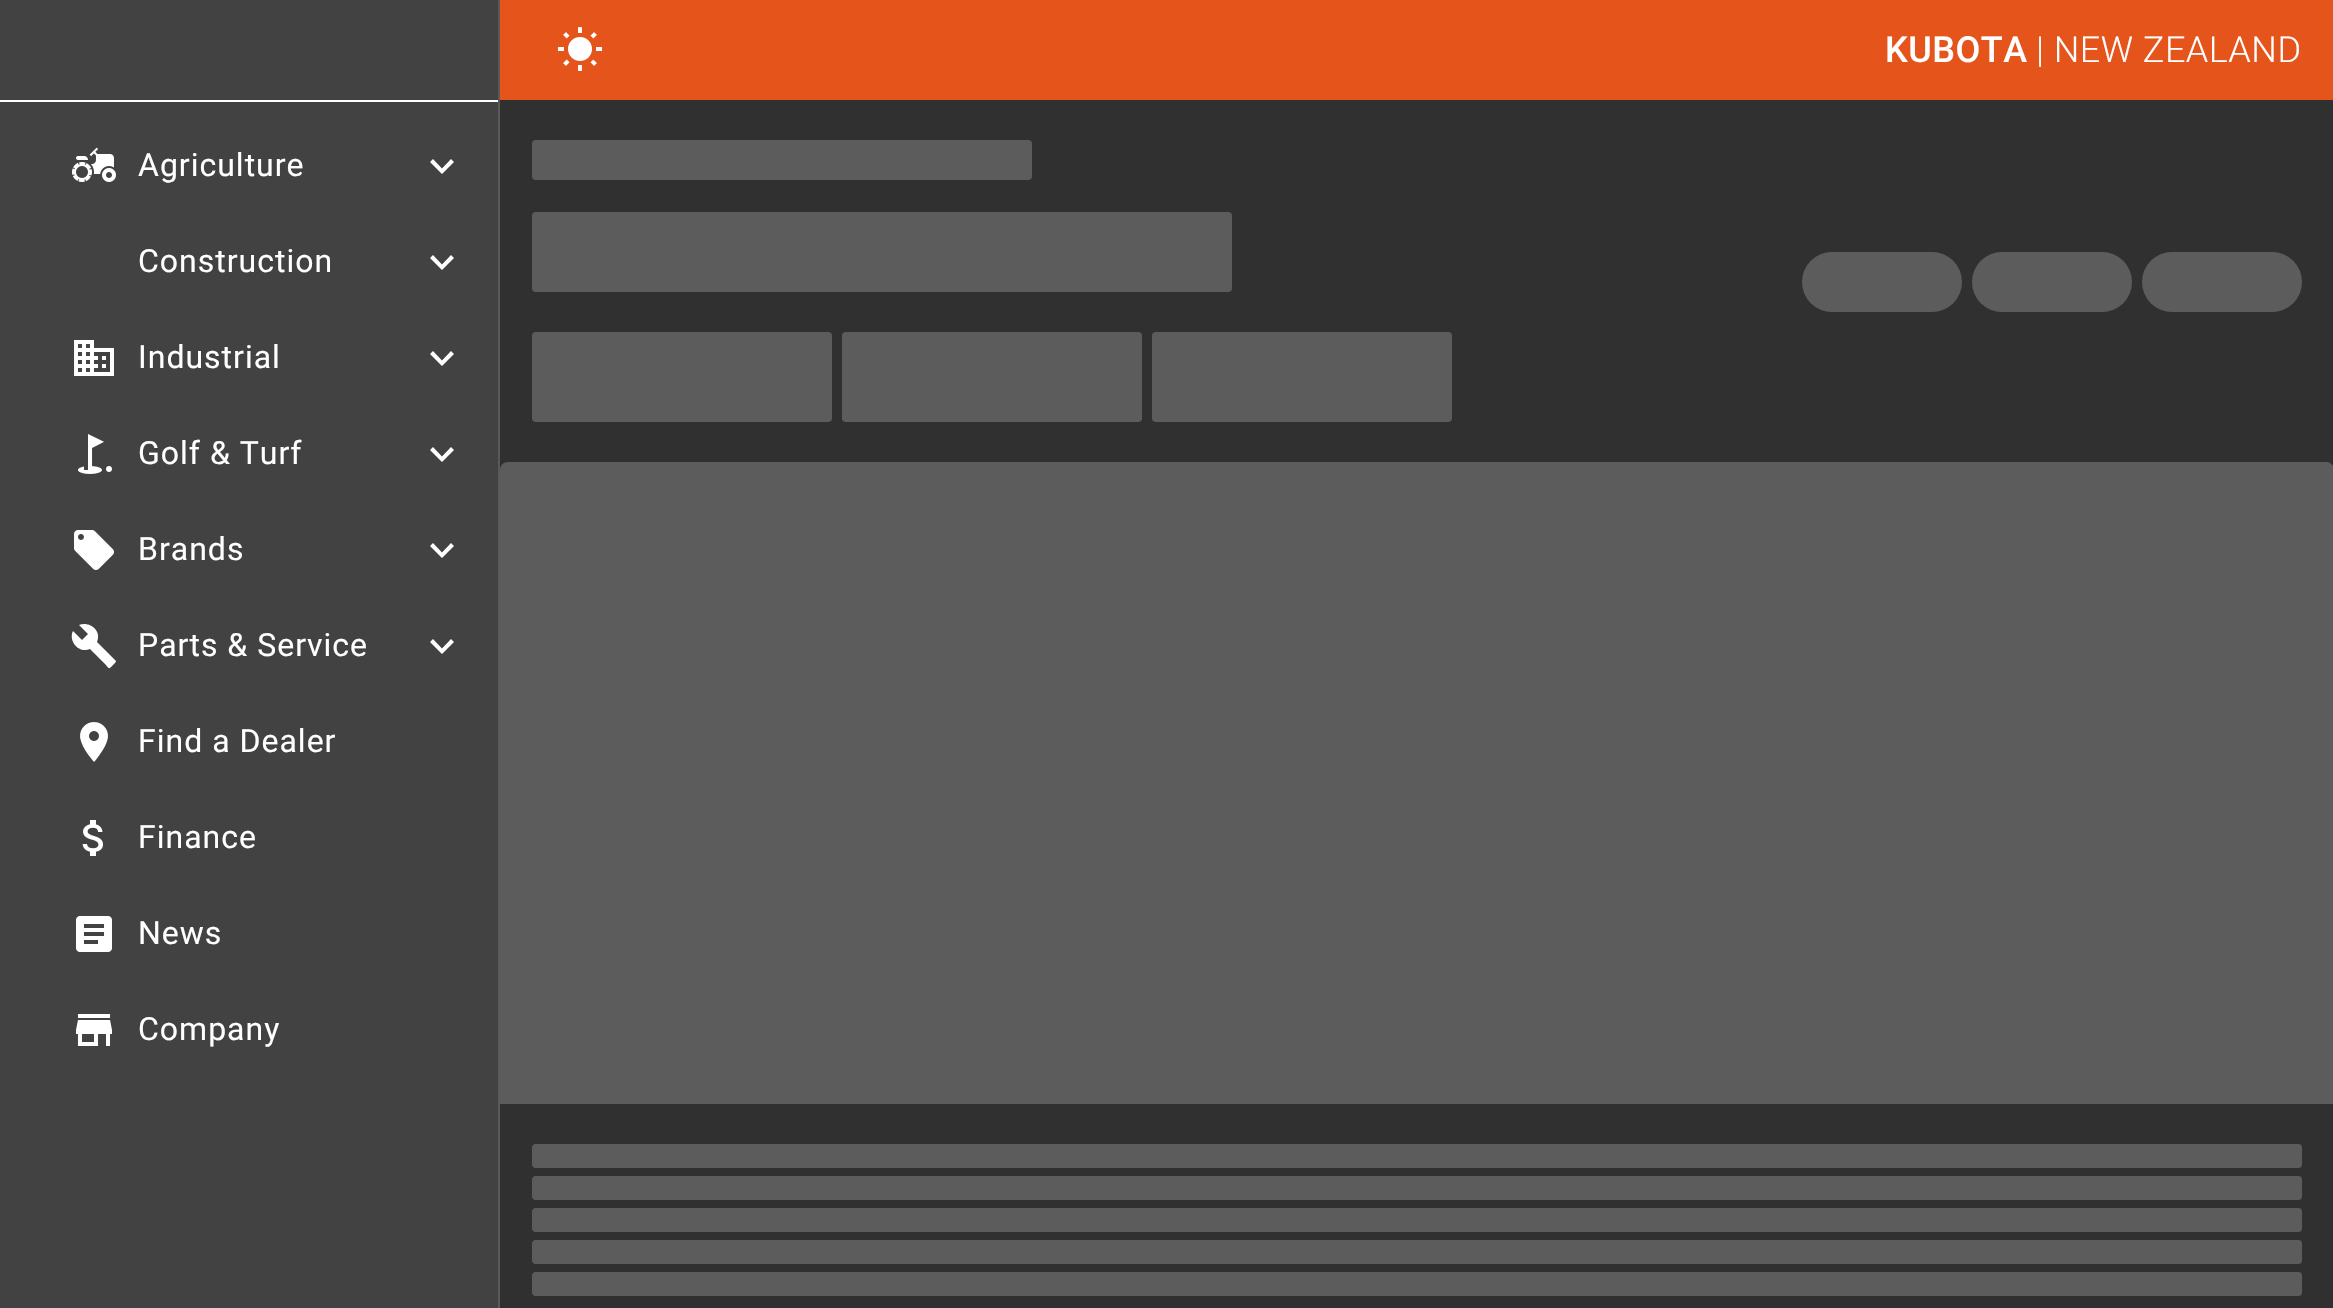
#include "include/core/SkBlurTypes.h"
#include "include/core/SkCanvas.h"
#include "include/core/SkData.h"
#include "include/core/SkFont.h"
#include "include/core/SkFontMgr.h"
#include "include/core/SkImage.h"
#include "include/core/SkMaskFilter.h"
#include "include/core/SkPaint.h"
#include "include/core/SkPathBuilder.h"
#include "include/core/SkTextBlob.h"
#include "include/effects/SkDashPathEffect.h"
#include "include/effects/SkGradientShader.h"
#include "include/utils/SkParsePath.h"

extern sk_sp<SkFontMgr> fontMgr;

void draw(SkCanvas* canvas) {
    SkPaint p;
    p.setAntiAlias(true);
    auto font = [&](const char* family, int weight, float size, bool italic = false) {
        SkFontStyle style(weight, SkFontStyle::kNormal_Width,
            italic ? SkFontStyle::kItalic_Slant : SkFontStyle::kUpright_Slant);
        SkFont result(fontMgr->matchFamilyStyle(family, style), size);
        result.setSubpixel(true);
        return result;
    };
    auto drawTracked = [&](const char* s, float x, float y, const SkFont& font, const SkPaint& ink, float letter, float word) {
        std::vector<SkGlyphID> glyphs(font.countText(s, strlen(s), SkTextEncoding::kUTF8));
        std::vector<float> xs(glyphs.size());
        font.textToGlyphs(s, strlen(s), SkTextEncoding::kUTF8, glyphs);
        font.getXPos(glyphs, xs, x);
        float extra = 0;
        for (size_t i = 0; i < glyphs.size(); i++) {
            xs[i] += extra;
            extra += letter + word * (glyphs[i] == font.unicharToGlyph(' '));
        }
        canvas->drawTextBlob(SkTextBlob::MakeFromPosHGlyphs(glyphs, xs, y, font), 0, 0, ink);
    };
    auto drawPhoto = [&](const char* path, float l, float t, float r, float b) {
        auto image = SkImages::DeferredFromEncodedData(SkData::MakeFromFileName(path));
        canvas->drawImageRect(image, SkRect::MakeLTRB(l, t, r, b), SkSamplingOptions());
    };
    canvas->clear(0xFF303030);
    p.setColor(0xFFE4541B);
    canvas->drawRect(SkRect::MakeLTRB(500, 0, 2333, 100), p);
    drawPhoto("media/1.png", 557, 27, 603, 71);
    auto font1 = font("Roboto", 500, 36);
    p.setColor(0xFFFFFFFF);
    drawTracked("KUBOTA", 1885, 62, font1, p, 0.5f, 0);
    auto font2 = font("Roboto", 300, 36);
    drawTracked("| NEW ZEALAND", 2036, 62, font2, p, 0.5f, 0);
    p.setColor(0xFF5C5C5C);
    canvas->drawRoundRect(SkRect::MakeLTRB(532, 140, 1032, 180), 4, 4, p);
    canvas->drawRoundRect(SkRect::MakeLTRB(532, 212, 1232, 292), 4, 4, p);
    canvas->drawRoundRect(SkRect::MakeLTRB(532, 332, 832, 422), 4, 4, p);
    canvas->drawRoundRect(SkRect::MakeLTRB(842, 332, 1142, 422), 4, 4, p);
    canvas->drawRoundRect(SkRect::MakeLTRB(1152, 332, 1452, 422), 4, 4, p);
    canvas->drawRoundRect(SkRect::MakeLTRB(1802, 252, 1962, 312), 30, 30, p);
    canvas->drawRoundRect(SkRect::MakeLTRB(1972, 252, 2132, 312), 30, 30, p);
    canvas->drawRoundRect(SkRect::MakeLTRB(2142, 252, 2302, 312), 30, 30, p);
    canvas->drawPath(SkPathBuilder().moveTo(508, 462).lineTo(2326, 462).cubicTo(2330.5f, 462, 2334, 465.5f, 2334, 470).lineTo(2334, 1104).lineTo(500, 1104).lineTo(500, 470).cubicTo(500, 465.5f, 503.5f, 462, 508, 462).close().detach(), p);
    canvas->drawRoundRect(SkRect::MakeLTRB(532, 1144, 2302, 1168), 4, 4, p);
    canvas->drawRoundRect(SkRect::MakeLTRB(532, 1176, 2302, 1200), 4, 4, p);
    canvas->drawRoundRect(SkRect::MakeLTRB(532, 1208, 2302, 1232), 4, 4, p);
    canvas->drawRoundRect(SkRect::MakeLTRB(532, 1240, 2302, 1264), 4, 4, p);
    canvas->drawRoundRect(SkRect::MakeLTRB(532, 1272, 2302, 1296), 4, 4, p);
    {
        const struct { float l, t, r, b; SkColor color; } items[] = {
            {0, 0, 498, 1308, 0xFF424242},
            {498, 0, 500, 1308, 0xFF595959},
            {0, 100, 498, 102, 0xFFFFFFFF},
        };
        for (auto [l, t, r, b, color] : items) {
            p.setColor(color);
            canvas->drawRect(SkRect::MakeLTRB(l, t, r, b), p);
        }
    }
    drawPhoto("media/2.png", 72, 147, 116, 182);
    auto font3 = font("Roboto", 400, 32);
    drawTracked("Agriculture", 138, 176, font3, p, 1, 0);
    canvas->drawPath(SkPathBuilder().moveTo(451, 159).lineTo(454, 162).lineTo(442, 174).lineTo(430, 162).lineTo(433, 159).lineTo(442, 168.5f).close().detach(), p);
    drawTracked("Construction", 138, 272, font3, p, 1, 0);
    canvas->drawPath(SkPathBuilder().moveTo(451, 255).lineTo(454, 258).lineTo(442, 270).lineTo(430, 258).lineTo(433, 255).lineTo(442, 264.5f).close().detach(), p);
    drawPhoto("media/3.png", 74, 340, 114, 376);
    drawTracked("Industrial", 138, 368, font3, p, 1, 0);
    canvas->drawPath(SkPathBuilder().moveTo(451, 351).lineTo(454, 354).lineTo(442, 366).lineTo(430, 354).lineTo(433, 351).lineTo(442, 360.5f).close().detach(), p);
    drawPhoto("media/4.png", 78, 434, 112, 474);
    drawTracked("Golf & Turf", 138, 464, font3, p, 1, 0);
    canvas->drawPath(SkPathBuilder().moveTo(451, 447).lineTo(454, 450).lineTo(442, 462).lineTo(430, 450).lineTo(433, 447).lineTo(442, 456.5f).close().detach(), p);
    drawPhoto("media/5.png", 74, 530, 114, 570);
    drawTracked("Brands", 138, 560, font3, p, 1, 0);
    canvas->drawPath(SkPathBuilder().moveTo(451, 543).lineTo(454, 546).lineTo(442, 558).lineTo(430, 546).lineTo(433, 543).lineTo(442, 552.5f).close().detach(), p);
    canvas->drawPath(SkPathBuilder().moveTo(115, 660).lineTo(116, 661).cubicTo(116, 662, 115, 663, 114, 664).cubicTo(109, 669, 110, 670, 105, 664).lineTo(90, 649).cubicTo(79, 654, 68, 641, 73, 631).lineTo(82, 640).lineTo(88, 634).lineTo(79, 625).cubicTo(90, 621, 102, 631, 97, 642).close().detach(), p);
    drawTracked("Parts & Service", 138, 656, font3, p, 1, 0);
    canvas->drawPath(SkPathBuilder().moveTo(451, 639).lineTo(454, 642).lineTo(442, 654).lineTo(430, 642).lineTo(433, 639).lineTo(442, 648.5f).close().detach(), p);
    drawPhoto("media/6.png", 80, 722, 108, 762);
    drawTracked("Find a Dealer", 138, 752, font3, p, 1, 0);
    drawPhoto("media/7.png", 82, 820, 103, 856);
    drawTracked("Finance", 138, 848, font3, p, 1, 0);
    drawPhoto("media/8.png", 76, 916, 112, 952);
    drawTracked("News", 138, 944, font3, p, 1, 0);
    drawPhoto("media/9.png", 76, 1014, 112, 1046);
    drawTracked("Company", 138, 1040, font3, p, 1, 0);
}
